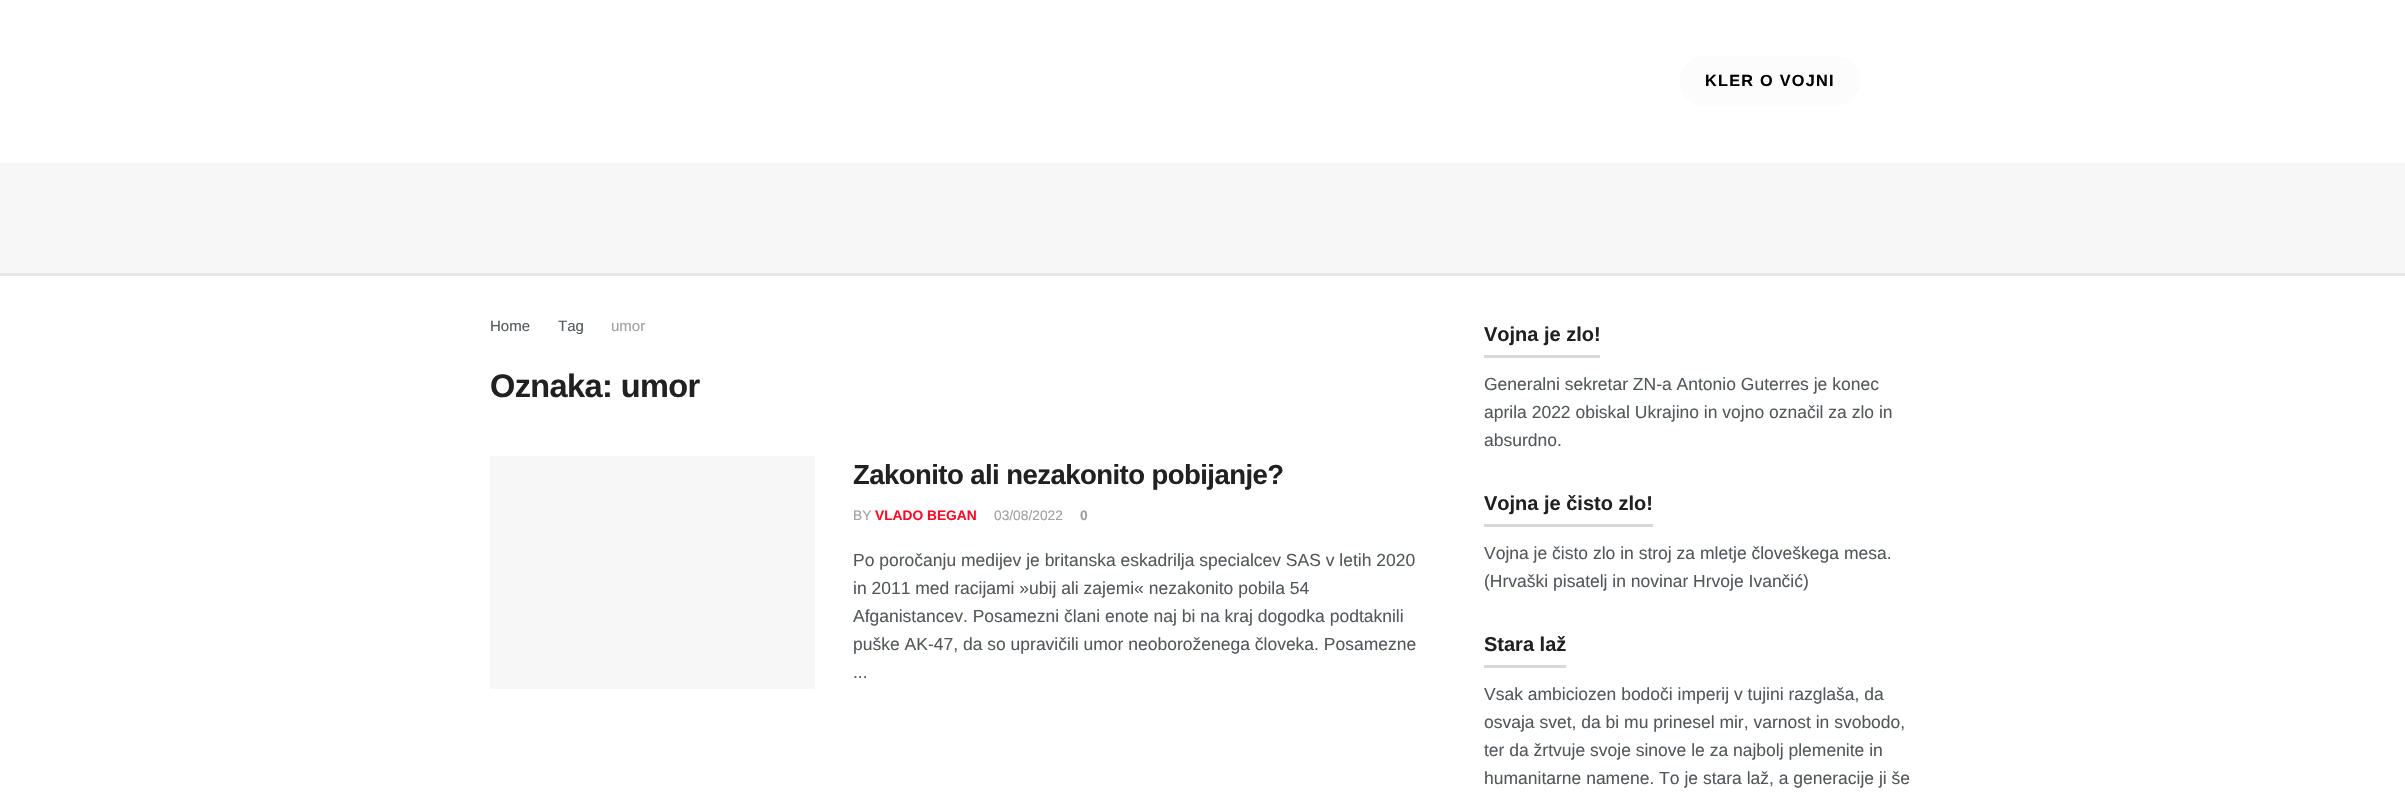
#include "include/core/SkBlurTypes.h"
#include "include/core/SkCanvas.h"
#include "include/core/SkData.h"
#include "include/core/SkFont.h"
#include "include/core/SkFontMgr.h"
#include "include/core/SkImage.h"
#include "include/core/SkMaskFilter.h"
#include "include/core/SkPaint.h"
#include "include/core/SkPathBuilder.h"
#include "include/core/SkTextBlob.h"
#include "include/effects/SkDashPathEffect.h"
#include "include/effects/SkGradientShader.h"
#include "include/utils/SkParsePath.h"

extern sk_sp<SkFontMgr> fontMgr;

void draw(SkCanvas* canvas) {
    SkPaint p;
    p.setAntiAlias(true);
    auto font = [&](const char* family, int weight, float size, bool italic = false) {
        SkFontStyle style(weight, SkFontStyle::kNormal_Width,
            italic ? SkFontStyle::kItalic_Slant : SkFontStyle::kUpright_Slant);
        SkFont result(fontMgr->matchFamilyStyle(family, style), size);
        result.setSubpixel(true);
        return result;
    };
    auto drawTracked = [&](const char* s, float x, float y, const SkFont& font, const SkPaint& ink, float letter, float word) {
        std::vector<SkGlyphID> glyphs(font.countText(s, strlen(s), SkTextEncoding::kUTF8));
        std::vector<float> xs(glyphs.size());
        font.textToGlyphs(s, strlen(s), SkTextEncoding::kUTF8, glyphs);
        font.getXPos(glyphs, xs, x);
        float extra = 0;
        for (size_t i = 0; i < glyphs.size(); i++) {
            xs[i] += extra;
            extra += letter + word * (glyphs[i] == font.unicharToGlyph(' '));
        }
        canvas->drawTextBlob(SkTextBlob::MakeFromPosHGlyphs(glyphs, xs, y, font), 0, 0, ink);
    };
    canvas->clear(0xFFFFFFFF);
    p.setColor(0xFFFCFCFC);
    canvas->drawRoundRect(SkRect::MakeLTRB(1680, 56, 1860, 106), 25, 25, p);
    auto font1 = font("Liberation Sans", 700, 16.25f);
    p.setColor(0xFF000000);
    drawTracked("KLER O VOJNI", 1705, 86, font1, p, 1.25f, 0);
    p.setColor(0xFFF7F7F7);
    canvas->drawRect(SkRect::MakeLTRB(0, 163, 2405, 273), p);
    p.setColor(0xFFE8E8E8);
    canvas->drawRect(SkRect::MakeLTRB(0, 273, 2405, 276), p);
    auto font2 = font("Liberation Sans", 400, 15);
    p.setColor(0xFF53585C);
    canvas->drawString("Home", 490, 331, font2, p);
    canvas->drawString("Tag", 558, 331, font2, p);
    p.setColor(0xFFA0A0A0);
    canvas->drawString("umor", 611, 331, font2, p);
    auto font3 = font("Liberation Sans", 700, 32.5f);
    p.setColor(0xFF212121);
    drawTracked("Oznaka: umor", 490, 397, font3, p, -0.6f, 0);
    p.setColor(0xFFF7F7F7);
    canvas->drawRect(SkRect::MakeLTRB(490, 456, 815, 689), p);
    auto font4 = font("Liberation Sans", 700, 27.5f);
    p.setColor(0xFF212121);
    drawTracked("Zakonito ali nezakonito pobijanje?", 853, 484, font4, p, -0.55f, 0);
    auto font5 = font("Liberation Sans", 400, 13.75f);
    p.setColor(0xFFA0A0A0);
    canvas->drawString("BY", 853, 520, font5, p);
    auto font6 = font("Liberation Sans", 700, 13.75f);
    p.setColor(0xFFF70D28);
    canvas->drawString("VLADO BEGAN", 875, 520, font6, p);
    p.setColor(0xFFA0A0A0);
    canvas->drawString("03/08/2022", 994, 520, font5, p);
    canvas->drawString("0", 1080, 520, font6, p);
    auto font7 = font("Liberation Sans", 400, 17.5f);
    p.setColor(0xFF53585C);
    {
        const struct { const char* s; float x, y; } items[] = {
            {"Po poročanju medijev je britanska eskadrilja specialcev SAS v letih 2020", 853, 566},
            {"in 2011 med racijami »ubij ali zajemi« nezakonito pobila 54", 853, 594},
            {"Afganistancev. Posamezni člani enote naj bi na kraj dogodka podtaknili", 853, 622},
            {"puške AK-47, da so upravičili umor neoboroženega človeka. Posamezne", 853, 650},
            {"...", 853, 678},
        };
        for (auto [s, x, y] : items) {
            canvas->drawString(s, x, y, font7, p);
        }
    }
    p.setColor(0xFFD8D8D8);
    canvas->drawRect(SkRect::MakeLTRB(1484, 355, 1600, 358), p);
    auto font8 = font("Liberation Sans", 700, 20);
    p.setColor(0xFF212121);
    canvas->drawString("Vojna je zlo!", 1484, 341, font8, p);
    p.setColor(0xFF53585C);
    {
        const struct { const char* s; float x, y; } items[] = {
            {"Generalni sekretar ZN-a Antonio Guterres je konec", 1484, 390},
            {"aprila 2022 obiskal Ukrajino in vojno označil za zlo in", 1484, 418},
            {"absurdno.", 1484, 446},
        };
        for (auto [s, x, y] : items) {
            canvas->drawString(s, x, y, font7, p);
        }
    }
    p.setColor(0xFFD8D8D8);
    canvas->drawRect(SkRect::MakeLTRB(1484, 524, 1653, 527), p);
    p.setColor(0xFF212121);
    canvas->drawString("Vojna je čisto zlo!", 1484, 510, font8, p);
    p.setColor(0xFF53585C);
    canvas->drawString("Vojna je čisto zlo in stroj za mletje človeškega mesa.", 1484, 559, font7, p);
    canvas->drawString("(Hrvaški pisatelj in novinar Hrvoje Ivančić)", 1484, 587, font7, p);
    p.setColor(0xFFD8D8D8);
    canvas->drawRect(SkRect::MakeLTRB(1484, 665, 1566, 668), p);
    p.setColor(0xFF212121);
    canvas->drawString("Stara laž", 1484, 651, font8, p);
    p.setColor(0xFF53585C);
    {
        const struct { const char* s; float x, y; } items[] = {
            {"Vsak ambiciozen bodoči imperij v tujini razglaša, da", 1484, 700},
            {"osvaja svet, da bi mu prinesel mir, varnost in svobodo,", 1484, 728},
            {"ter da žrtvuje svoje sinove le za najbolj plemenite in", 1484, 756},
            {"humanitarne namene. To je stara laž, a generacije ji še", 1484, 784},
        };
        for (auto [s, x, y] : items) {
            canvas->drawString(s, x, y, font7, p);
        }
    }
}
